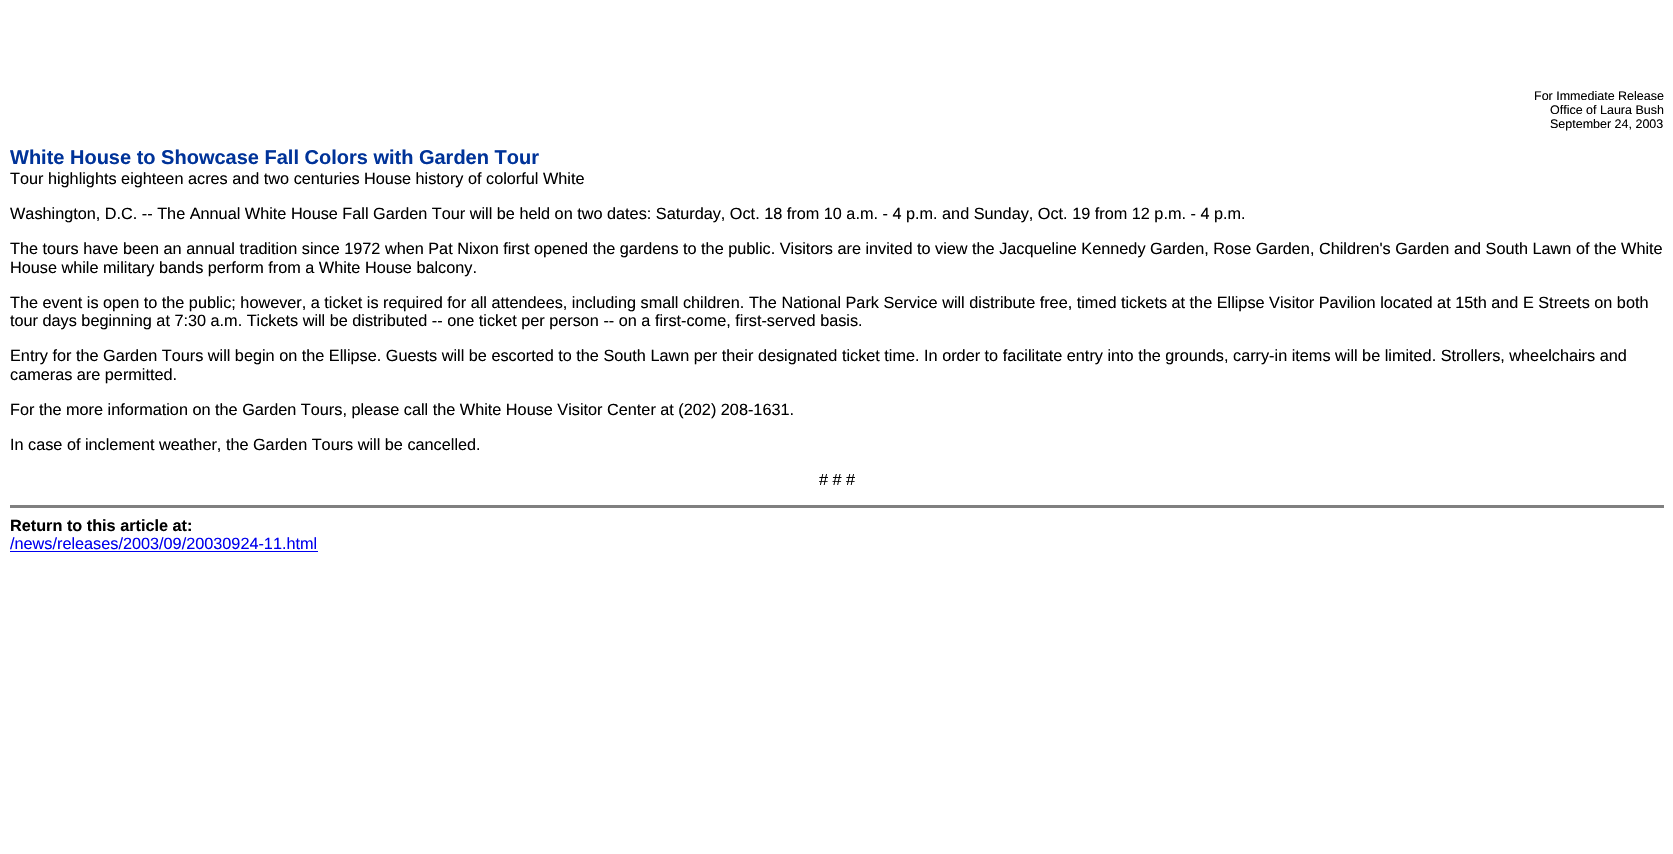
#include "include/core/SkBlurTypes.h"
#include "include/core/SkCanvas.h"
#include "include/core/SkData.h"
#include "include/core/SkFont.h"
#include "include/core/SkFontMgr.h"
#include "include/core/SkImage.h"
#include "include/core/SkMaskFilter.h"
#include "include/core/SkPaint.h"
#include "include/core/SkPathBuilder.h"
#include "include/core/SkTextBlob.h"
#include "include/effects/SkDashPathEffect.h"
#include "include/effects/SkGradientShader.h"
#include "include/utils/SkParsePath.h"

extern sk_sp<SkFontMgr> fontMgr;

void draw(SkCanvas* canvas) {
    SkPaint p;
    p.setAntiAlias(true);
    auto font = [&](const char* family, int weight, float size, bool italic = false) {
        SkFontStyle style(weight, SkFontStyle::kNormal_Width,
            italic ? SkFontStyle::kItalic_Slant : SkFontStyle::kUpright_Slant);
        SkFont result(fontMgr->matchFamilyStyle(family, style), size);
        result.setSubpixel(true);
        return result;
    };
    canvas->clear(0xFFFFFFFF);
    auto font1 = font("Liberation Sans", 400, 12.5f);
    p.setColor(0xFF000000);
    {
        const struct { const char* s; float x, y; } items[] = {
            {"For Immediate Release", 1534, 100},
            {"Office of Laura Bush", 1550, 114},
            {"September 24, 2003", 1550, 128},
        };
        for (auto [s, x, y] : items) {
            canvas->drawString(s, x, y, font1, p);
        }
    }
    auto font2 = font("Liberation Sans", 700, 20);
    p.setColor(0xFF003399);
    canvas->drawString("White House to Showcase Fall Colors with Garden Tour", 10, 164, font2, p);
    auto font3 = font("Liberation Sans", 400, 16.25f);
    p.setColor(0xFF000000);
    {
        const struct { const char* s; float x, y; } items[] = {
            {"Tour highlights eighteen acres and two centuries House history of colorful White", 10, 184},
            {"Washington, D.C. -- The Annual White House Fall Garden Tour will be held on two dates: Saturday, Oct. 18 from 10 a.m. - 4 p.m. and Sunday, Oct. 19 from 12 p.m. - 4 p.m.", 10, 219},
            {"The tours have been an annual tradition since 1972 when Pat Nixon first opened the gardens to the public. Visitors are invited to view the Jacqueline Kennedy Garden, Rose Garden, Children's Garden and South Lawn of the White", 10, 254},
            {"House while military bands perform from a White House balcony.", 10, 273},
            {"The event is open to the public; however, a ticket is required for all attendees, including small children. The National Park Service will distribute free, timed tickets at the Ellipse Visitor Pavilion located at 15th and E Streets on both", 10, 308},
            {"tour days beginning at 7:30 a.m. Tickets will be distributed -- one ticket per person -- on a first-come, first-served basis.", 10, 326},
            {"Entry for the Garden Tours will begin on the Ellipse. Guests will be escorted to the South Lawn per their designated ticket time. In order to facilitate entry into the grounds, carry-in items will be limited. Strollers, wheelchairs and", 10, 361},
            {"cameras are permitted.", 10, 380},
            {"For the more information on the Garden Tours, please call the White House Visitor Center at (202) 208-1631.", 10, 415},
            {"In case of inclement weather, the Garden Tours will be cancelled.", 10, 450},
            {"# # #", 819, 485},
        };
        for (auto [s, x, y] : items) {
            canvas->drawString(s, x, y, font3, p);
        }
    }
    p.setColor(0xFF808080);
    canvas->drawRect(SkRect::MakeLTRB(10, 505, 1664, 508), p);
    auto font4 = font("Liberation Sans", 700, 16.25f);
    p.setColor(0xFF000000);
    canvas->drawString("Return to this article at:", 10, 531, font4, p);
    p.setColor(0xFF0000EE);
    canvas->drawString("/news/releases/2003/09/20030924-11.html", 10, 549, font3, p);
    canvas->drawRect(SkRect::MakeLTRB(10, 551, 318, 552), p);
}
